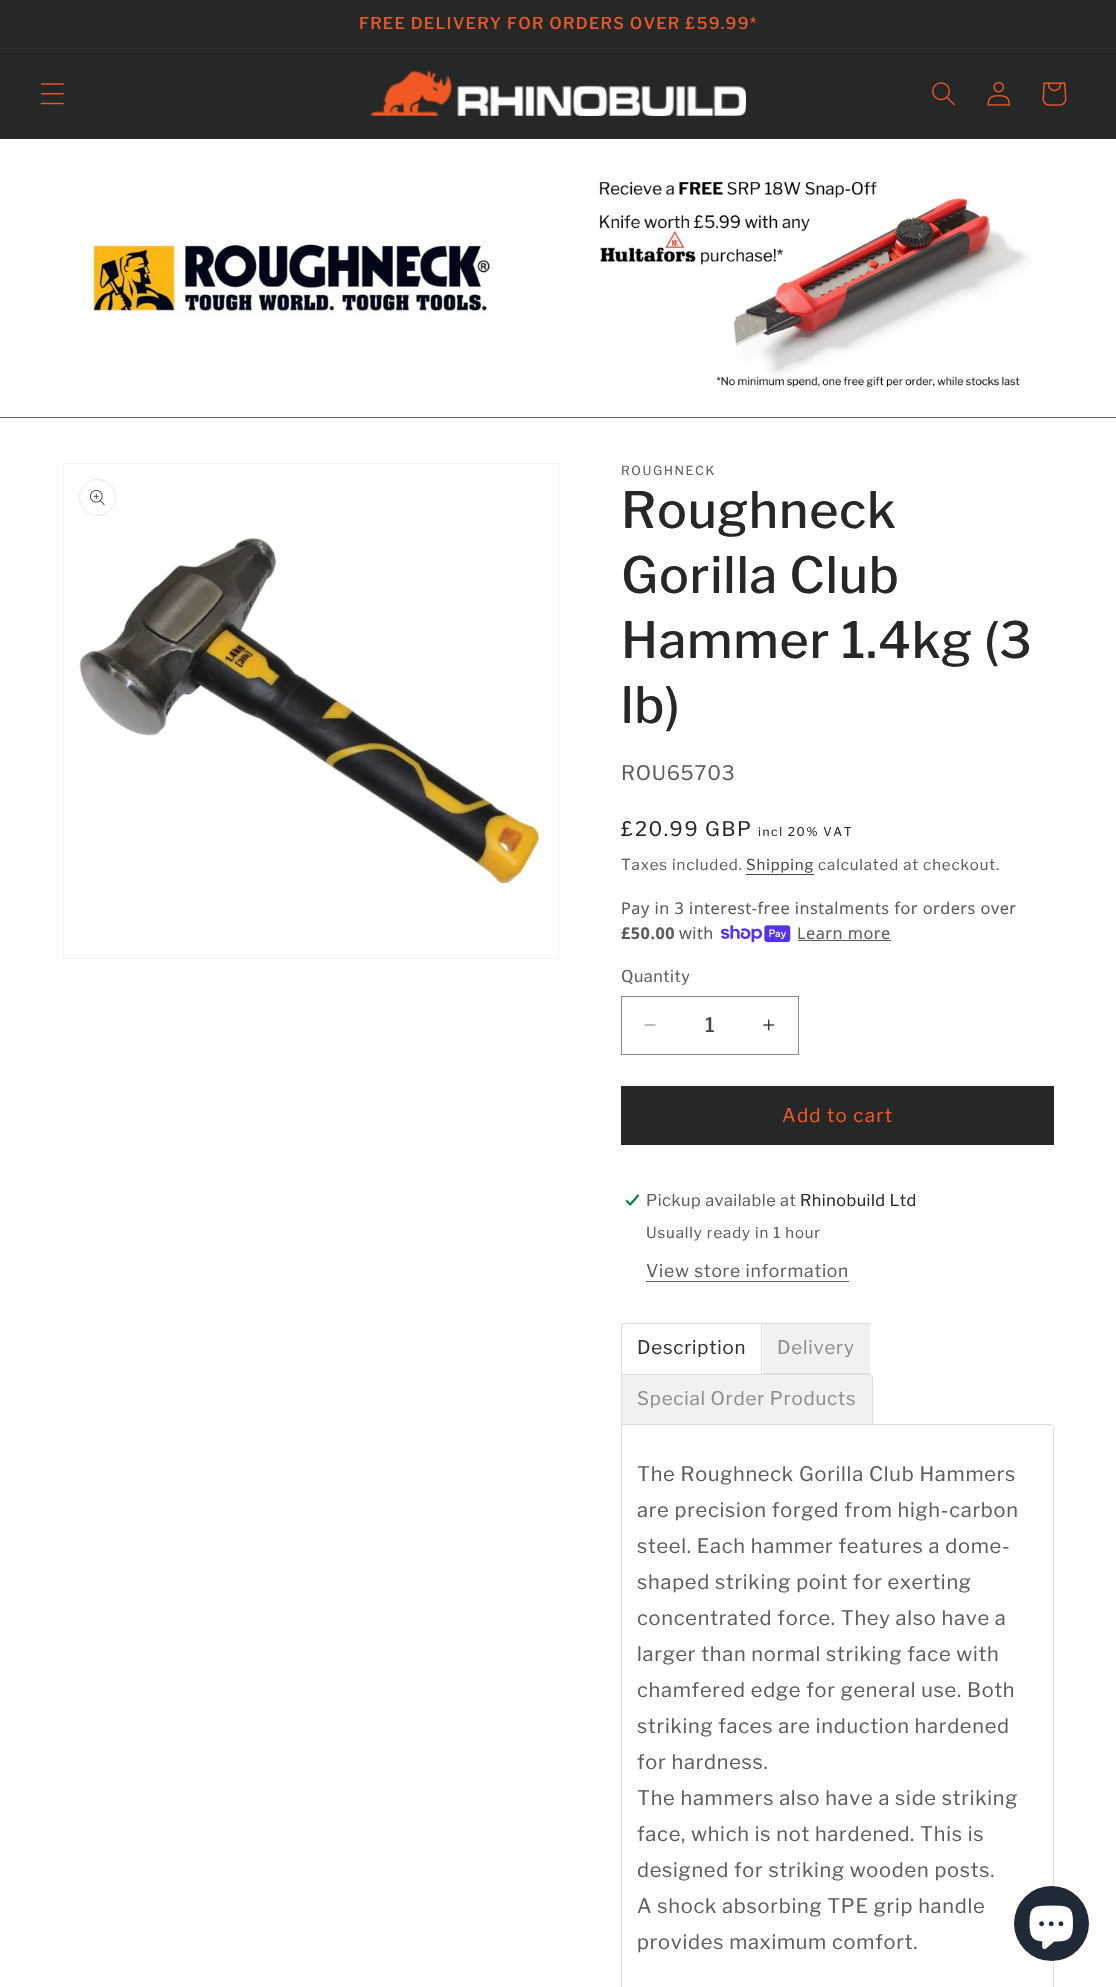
#include "include/core/SkBlurTypes.h"
#include "include/core/SkCanvas.h"
#include "include/core/SkData.h"
#include "include/core/SkFont.h"
#include "include/core/SkFontMgr.h"
#include "include/core/SkImage.h"
#include "include/core/SkMaskFilter.h"
#include "include/core/SkPaint.h"
#include "include/core/SkPathBuilder.h"
#include "include/core/SkTextBlob.h"
#include "include/effects/SkDashPathEffect.h"
#include "include/effects/SkGradientShader.h"
#include "include/utils/SkParsePath.h"

extern sk_sp<SkFontMgr> fontMgr;

void draw(SkCanvas* canvas) {
    SkPaint p;
    p.setAntiAlias(true);
    auto font = [&](const char* family, int weight, float size, bool italic = false) {
        SkFontStyle style(weight, SkFontStyle::kNormal_Width,
            italic ? SkFontStyle::kItalic_Slant : SkFontStyle::kUpright_Slant);
        SkFont result(fontMgr->matchFamilyStyle(family, style), size);
        result.setSubpixel(true);
        return result;
    };
    auto drawTracked = [&](const char* s, float x, float y, const SkFont& font, const SkPaint& ink, float letter, float word) {
        std::vector<SkGlyphID> glyphs(font.countText(s, strlen(s), SkTextEncoding::kUTF8));
        std::vector<float> xs(glyphs.size());
        font.textToGlyphs(s, strlen(s), SkTextEncoding::kUTF8, glyphs);
        font.getXPos(glyphs, xs, x);
        float extra = 0;
        for (size_t i = 0; i < glyphs.size(); i++) {
            xs[i] += extra;
            extra += letter + word * (glyphs[i] == font.unicharToGlyph(' '));
        }
        canvas->drawTextBlob(SkTextBlob::MakeFromPosHGlyphs(glyphs, xs, y, font), 0, 0, ink);
    };
    auto drawPhoto = [&](const char* path, float l, float t, float r, float b) {
        auto image = SkImages::DeferredFromEncodedData(SkData::MakeFromFileName(path));
        canvas->drawImageRect(image, SkRect::MakeLTRB(l, t, r, b), SkSamplingOptions());
    };
    canvas->clear(0xFF262727);
    p.setColor(0xFF362B27);
    canvas->drawRect(SkRect::MakeLTRB(0, 48, 1116, 49), p);
    auto font1 = font("Libre Franklin", 500, 16.25f);
    p.setColor(0xFFF15924);
    drawTracked("FREE DELIVERY FOR ORDERS OVER £59.99*", 359, 29, font1, p, 1.25f, 0);
    p.setColor(0xFF362B27);
    canvas->drawRect(SkRect::MakeLTRB(0, 138, 1116, 139), p);
    drawPhoto("media/1.png", 40, 83, 64, 105);
    drawPhoto("media/2.png", 371, 71, 746, 116);
    drawPhoto("media/3.png", 932, 82, 955, 106);
    drawPhoto("media/4.png", 987, 81, 1010, 106);
    drawPhoto("media/5.png", 1042, 82, 1067, 106);
    p.setColor(0xFF3A2C27);
    canvas->drawRect(SkRect::MakeLTRB(0, 417, 1116, 418), p);
    drawPhoto("media/6.png", 0, 139, 1116, 418);
    p.setColor(0xFFFFFFFF);
    canvas->drawRect(SkRect::MakeLTRB(0, 418, 1116, 1987), p);
    p.setStyle(SkPaint::kStroke_Style);
    p.setStrokeWidth(1);
    p.setColor(0xFFF4F4F4);
    canvas->drawRect(SkRect::MakeLTRB(63.5f, 463.5f, 558.5f, 958.5f), p);
    p.setColor(0xFFE9E9E9);
    canvas->drawCircle(97.5f, 497.5f, 18, p);
    drawPhoto("media/7.png", 90, 490, 105, 505);
    drawPhoto("media/8.png", 79, 537, 544, 885);
    auto font2 = font("Libre Franklin", 400, 12.5f);
    p.setStyle(SkPaint::kFill_Style);
    p.setColor(0xFF5C5D5D);
    drawTracked("ROUGHNECK", 621, 475, font2, p, 1.6f, 0);
    auto font3 = font("Libre Franklin", 500, 50);
    p.setColor(0xFF262727);
    {
        const struct { const char* s; float x, y; } items[] = {
            {"Roughneck", 621, 528},
            {"Gorilla Club", 621, 593},
            {"Hammer 1.4kg (3", 621, 658},
            {"lb)", 621, 723},
        };
        for (auto [s, x, y] : items) {
            drawTracked(s, x, y, font3, p, 0.75f, 0);
        }
    }
    auto font4 = font("Libre Franklin", 400, 20);
    p.setColor(0xFF5C5D5D);
    drawTracked("ROU65703", 621, 780, font4, p, 0.75f, 0);
    p.setColor(0xFF262727);
    drawTracked("£20.99 GBP", 621, 836, font4, p, 1.6f, 0);
    auto font5 = font("Libre Franklin", 400, 12);
    drawTracked("incl 20% VAT", 758, 836, font5, p, 1.6f, 0);
    auto font6 = font("Libre Franklin", 400, 15);
    p.setColor(0xFF5C5D5D);
    drawTracked("Taxes included.", 621, 870, font6, p, 0.9f, 0);
    p.setColor(0xFF474747);
    drawTracked("Shipping", 746, 870, font6, p, 0.9f, 0);
    canvas->drawRect(SkRect::MakeLTRB(746, 874, 814, 875), p);
    p.setColor(0xFF5C5D5D);
    drawTracked("calculated at checkout.", 818, 870, font6, p, 0.9f, 0);
    auto font7 = font("Noto Sans", 400, 16.25f);
    drawTracked("Pay in 3 interest-free instalments for orders over", 621, 914, font7, p, 0.5f, 0);
    auto font8 = font("Noto Sans", 700, 16.25f);
    drawTracked("£50.00", 621, 939, font8, p, 0.5f, 0);
    drawTracked("with", 679, 939, font7, p, 0.5f, 0);
    drawPhoto("media/9.png", 721, 925, 791, 943);
    drawTracked("Learn more", 797, 939, font7, p, 0.5f, 0);
    canvas->drawRect(SkRect::MakeLTRB(798, 940, 891, 941), p);
    auto font9 = font("Libre Franklin", 400, 16.25f);
    drawTracked("Quantity", 621, 982, font9, p, 0.5f, 0);
    drawPhoto("media/10.png", 644, 1024, 656, 1026);
    drawPhoto("media/11.png", 763, 1019, 775, 1031);
    p.setStyle(SkPaint::kStroke_Style);
    p.setColor(0xFF888888);
    canvas->drawRect(SkRect::MakeLTRB(621.5f, 996.5f, 798.5f, 1054.5f), p);
    auto font10 = font("Libre Franklin", 500, 20);
    p.setStyle(SkPaint::kFill_Style);
    p.setColor(0xFF474747);
    canvas->drawString("1", 705, 1032, font10, p);
    p.setColor(0xFF262727);
    canvas->drawRect(SkRect::MakeLTRB(621, 1086, 1054, 1145), p);
    auto font11 = font("Libre Franklin", 400, 18.75f);
    p.setColor(0xFFF15924);
    drawTracked("Add to cart", 782, 1122, font11, p, 1.25f, 0);
    drawPhoto("media/12.png", 625, 1193, 640, 1207);
    p.setColor(0xFF5C5D5D);
    drawTracked("Pickup available at", 646, 1206, font9, p, 0.5f, 0);
    p.setColor(0xFF262727);
    drawTracked("Rhinobuild Ltd", 800, 1206, font9, p, 0.5f, 0);
    p.setColor(0xFF5C5D5D);
    drawTracked("Usually ready in 1 hour", 646, 1238, font6, p, 0.9f, 0);
    auto font12 = font("Libre Franklin", 400, 17.5f);
    drawTracked("View store information", 646, 1277, font12, p, 0.75f, 0);
    canvas->drawRect(SkRect::MakeLTRB(646, 1281, 849, 1282), p);
    canvas->save();
    canvas->clipRect(SkRect::MakeLTRB(621, 1323, 1054, 1425));
    p.setColor(0xFFDDDDDD);
    canvas->drawPath(SkPathBuilder(SkPathFillType::kEvenOdd).moveTo(625, 1322).lineTo(762, 1322).lineTo(762, 1374).lineTo(621, 1374).lineTo(621, 1326).cubicTo(621, 1324, 623, 1322, 625, 1322).close().moveTo(625, 1324).lineTo(761, 1324).lineTo(761, 1374).lineTo(622, 1374).lineTo(622, 1326).cubicTo(622, 1325, 624, 1324, 625, 1324).close().detach(), p);
    canvas->restore();
    p.setColor(0xFF333333);
    drawTracked("Description", 637, 1354, font11, p, 0.75f, 0);
    {
        const struct { float l, t, r, b; SkColor color; } items[] = {
            {763, 1324, 870, 1373, 0xFFF1F1F1},
            {763, 1323, 870, 1324, 0xFFDDDDDD},
            {763, 1373, 870, 1374, 0xFFDDDDDD},
        };
        for (auto [l, t, r, b, color] : items) {
            p.setColor(color);
            canvas->drawRect(SkRect::MakeLTRB(l, t, r, b), p);
        }
    }
    p.setColor(0xFF8D8D8D);
    drawTracked("Delivery", 777, 1354, font11, p, 0.75f, 0);
    p.setStyle(SkPaint::kStroke_Style);
    p.setColor(0xFFDDDDDD);
    canvas->drawPath(SkPathBuilder().moveTo(621.5f, 1424.5f).lineTo(1050, 1424.5f).cubicTo(1052, 1424.5f, 1053.5f, 1426, 1053.5f, 1428).lineTo(1053.5f, 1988).cubicTo(1053.5f, 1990, 1052, 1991.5f, 1050, 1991.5f).lineTo(625, 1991.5f).cubicTo(623, 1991.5f, 621.5f, 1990, 621.5f, 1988).close().detach(), p);
    p.setStyle(SkPaint::kFill_Style);
    p.setColor(0xFFF1F1F1);
    canvas->drawPath(SkPathBuilder().moveTo(621.5f, 1374.5f).lineTo(869, 1374.5f).cubicTo(871, 1374.5f, 872.5f, 1376, 872.5f, 1378).lineTo(872.5f, 1424.5f).lineTo(621.5f, 1424.5f).close().detach(), p);
    p.setStyle(SkPaint::kStroke_Style);
    p.setColor(0xFFDDDDDD);
    canvas->drawPath(SkPathBuilder().moveTo(621.5f, 1374.5f).lineTo(869, 1374.5f).cubicTo(871, 1374.5f, 872.5f, 1376, 872.5f, 1378).lineTo(872.5f, 1424.5f).lineTo(621.5f, 1424.5f).close().detach(), p);
    p.setStyle(SkPaint::kFill_Style);
    p.setColor(0xFF8D8D8D);
    drawTracked("Special Order Products", 637, 1405, font11, p, 0.75f, 0);
    p.setColor(0xFF5C5D5D);
    {
        const struct { const char* s; float x, y; } items[] = {
            {"The Roughneck Gorilla Club Hammers", 637, 1481},
            {"are precision forged from high-carbon", 637, 1517},
            {"steel. Each hammer features a dome-", 637, 1553},
            {"shaped striking point for exerting", 637, 1589},
            {"concentrated force. They also have a", 637, 1625},
            {"larger than normal striking face with", 637, 1661},
            {"chamfered edge for general use. Both", 637, 1697},
            {"striking faces are induction hardened", 637, 1733},
            {"for hardness.", 637, 1769},
            {"The hammers also have a side striking", 637, 1805},
            {"face, which is not hardened. This is", 637, 1841},
            {"designed for striking wooden posts.", 637, 1877},
            {"A shock absorbing TPE grip handle", 637, 1913},
            {"provides maximum comfort.", 637, 1949},
        };
        for (auto [s, x, y] : items) {
            drawTracked(s, x, y, font4, p, 0.75f, 0);
        }
    }
    p.setColor(0xFF202A36);
    canvas->drawCircle(1051.5f, 1923.5f, 37.5f, p);
    drawPhoto("media/13.png", 1029, 1905, 1073, 1950);
}
